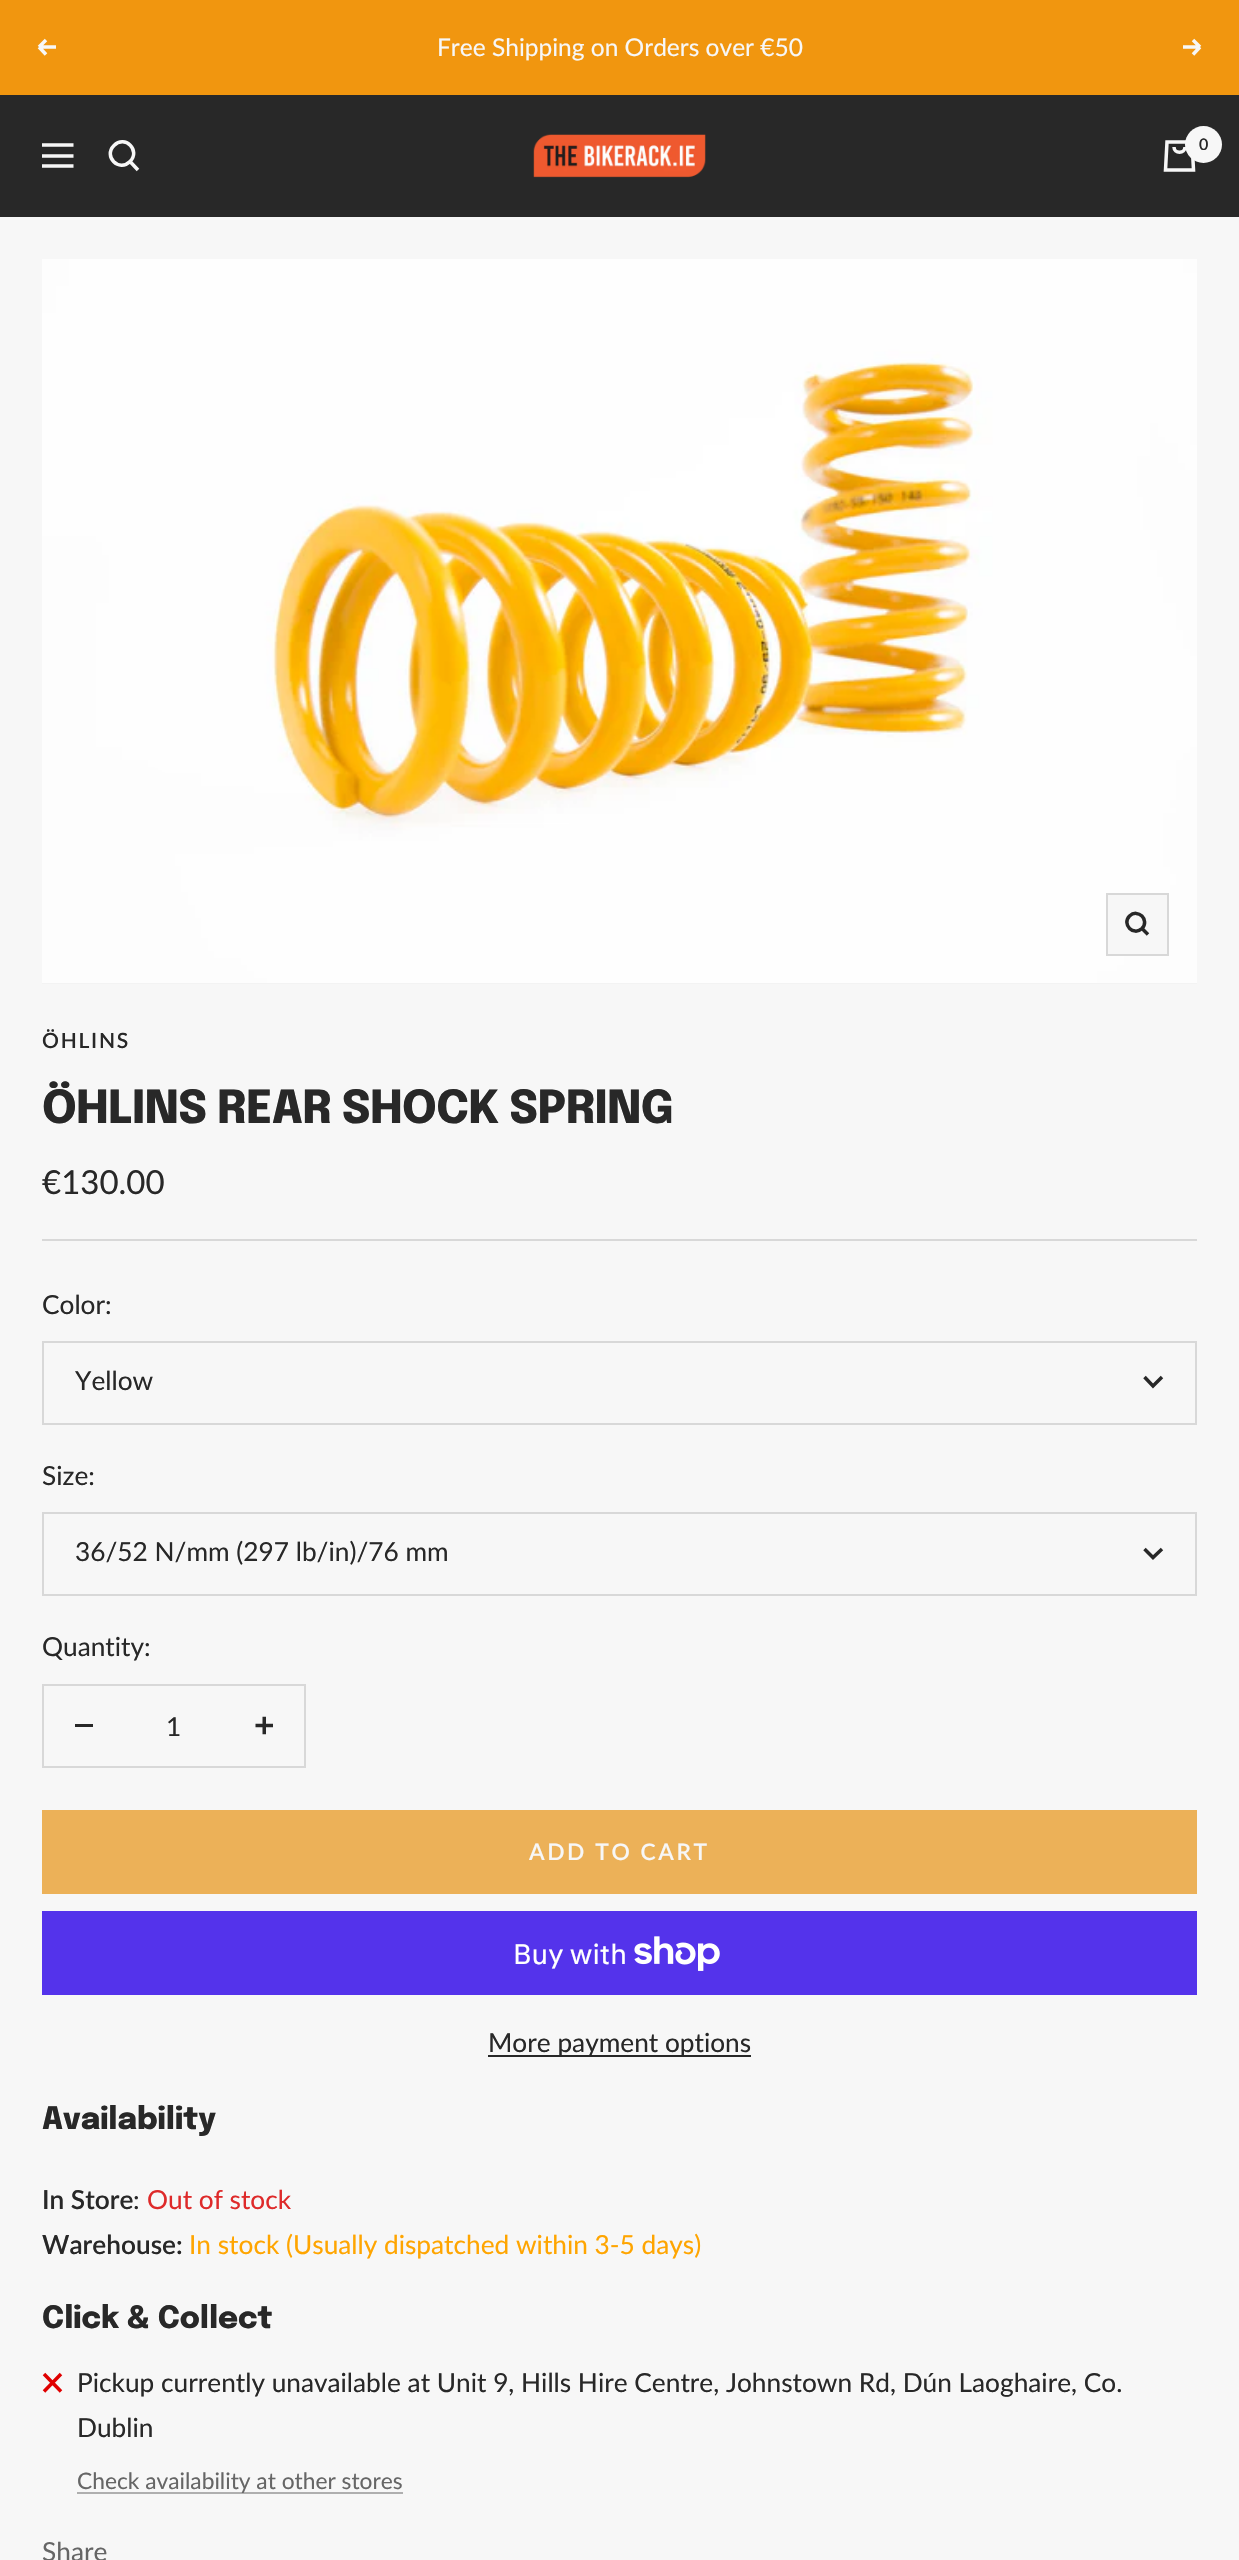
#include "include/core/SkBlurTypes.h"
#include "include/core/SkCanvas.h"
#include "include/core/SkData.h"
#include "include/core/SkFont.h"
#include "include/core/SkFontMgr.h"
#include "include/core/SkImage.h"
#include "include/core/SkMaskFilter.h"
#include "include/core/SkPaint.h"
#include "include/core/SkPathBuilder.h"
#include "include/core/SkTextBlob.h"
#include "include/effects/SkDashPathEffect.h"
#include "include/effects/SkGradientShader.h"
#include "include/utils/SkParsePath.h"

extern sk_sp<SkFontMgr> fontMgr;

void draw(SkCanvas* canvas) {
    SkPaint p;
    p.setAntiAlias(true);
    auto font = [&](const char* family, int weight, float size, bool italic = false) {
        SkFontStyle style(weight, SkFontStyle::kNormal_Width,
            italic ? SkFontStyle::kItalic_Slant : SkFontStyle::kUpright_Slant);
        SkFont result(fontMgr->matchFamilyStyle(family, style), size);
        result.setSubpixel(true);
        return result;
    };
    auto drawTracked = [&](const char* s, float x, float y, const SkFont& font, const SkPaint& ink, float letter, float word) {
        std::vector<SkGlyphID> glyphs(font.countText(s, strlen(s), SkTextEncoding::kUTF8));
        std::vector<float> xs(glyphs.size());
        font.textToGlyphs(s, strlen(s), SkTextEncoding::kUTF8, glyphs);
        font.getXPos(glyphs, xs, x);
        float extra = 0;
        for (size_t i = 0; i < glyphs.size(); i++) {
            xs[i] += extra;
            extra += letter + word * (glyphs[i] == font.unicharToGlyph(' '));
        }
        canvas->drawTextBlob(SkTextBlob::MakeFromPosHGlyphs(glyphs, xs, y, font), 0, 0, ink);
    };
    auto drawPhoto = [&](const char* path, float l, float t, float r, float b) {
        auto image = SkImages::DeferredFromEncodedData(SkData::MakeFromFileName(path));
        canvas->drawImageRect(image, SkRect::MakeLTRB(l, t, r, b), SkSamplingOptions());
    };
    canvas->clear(0xFFF7F7F7);
    p.setColor(0xFFF1960F);
    canvas->drawRect(SkRect::MakeLTRB(0, 0, 1239, 95), p);
    p.setStyle(SkPaint::kStroke_Style);
    p.setStrokeWidth(3.5f);
    p.setColor(0xFFF7F7F7);
    canvas->drawPath(SkPathBuilder().moveTo(56, 47).lineTo(39, 47).moveTo(39, 47).lineTo(46, 54.5f).moveTo(39, 47).lineTo(46, 40).detach(), p);
    auto font1 = font("Lato", 400, 24.5f);
    p.setStyle(SkPaint::kFill_Style);
    canvas->drawString("Free Shipping on Orders over €50", 437, 56, font1, p);
    p.setStyle(SkPaint::kStroke_Style);
    canvas->drawPath(SkPathBuilder().moveTo(1183, 47).lineTo(1200, 47).moveTo(1200, 47).lineTo(1193, 54.5f).moveTo(1200, 47).lineTo(1193, 40).detach(), p);
    p.setStyle(SkPaint::kFill_Style);
    p.setColor(0xFF282828);
    canvas->drawRect(SkRect::MakeLTRB(0, 95, 1239, 217), p);
    p.setStyle(SkPaint::kStroke_Style);
    p.setColor(0xFFF7F7F7);
    canvas->drawPath(SkPathBuilder().moveTo(42, 145).lineTo(73.5f, 145).moveTo(42, 166).lineTo(73.5f, 166).close().moveTo(42, 156).lineTo(73.5f, 156).close().detach(), p);
    canvas->drawPath(SkPathBuilder().moveTo(130, 161.5f).cubicTo(141, 150.5f, 125, 134.5f, 114, 145.5f).cubicTo(103, 156.5f, 119, 172.5f, 130, 161.5f).close().moveTo(130, 161.5f).lineTo(138, 170).detach(), p);
    drawPhoto("media/1.png", 533, 134, 706, 178);
    canvas->drawPath(SkPathBuilder().moveTo(1167, 142).lineTo(1192, 142).lineTo(1193.5f, 170).lineTo(1165.5f, 170).close().moveTo(1174, 147).cubicTo(1174, 154, 1185, 154, 1185, 147).detach(), p);
    p.setStyle(SkPaint::kFill_Style);
    canvas->drawCircle(1203.5f, 144.5f, 18.5f, p);
    auto font2 = font("Lato", 600, 16);
    p.setColor(0xFF282828);
    canvas->drawString("0", 1199, 150, font2, p);
    p.setColor(0xFFF3F3F3);
    canvas->drawRect(SkRect::MakeLTRB(42, 983, 1197, 984), p);
    drawPhoto("media/2.png", 42, 259, 1197, 983);
    p.setColor(0xFFF7F7F7);
    canvas->drawRect(SkRect::MakeLTRB(1107, 894, 1168, 955), p);
    p.setStyle(SkPaint::kStroke_Style);
    p.setStrokeWidth(2);
    p.setColor(0xFFD8D8D8);
    canvas->drawRect(SkRect::MakeLTRB(1107, 894, 1168, 955), p);
    p.setStrokeWidth(3.5f);
    p.setColor(0xFF282828);
    canvas->drawPath(SkPathBuilder().moveTo(1142, 928.5f).cubicTo(1150, 920, 1138, 908, 1129.5f, 916).cubicTo(1121.5f, 924.5f, 1133.5f, 936.5f, 1142, 928.5f).close().moveTo(1142, 928.5f).lineTo(1148, 934.5f).detach(), p);
    p.setStyle(SkPaint::kFill_Style);
    p.setColor(0xFFD8D8D8);
    canvas->drawRect(SkRect::MakeLTRB(42, 1239, 1197, 1241), p);
    auto font3 = font("Lato", 600, 21);
    p.setColor(0xFF282828);
    drawTracked("ÖHLINS", 42, 1048, font3, p, 1.75f, 0);
    auto font4 = font("Epilogue", 800, 45.5f);
    drawTracked("ÖHLINS REAR SHOCK SPRING", 42, 1123, font4, p, -0.7f, 0);
    auto font5 = font("Lato", 400, 33);
    canvas->drawString("€130.00", 42, 1194, font5, p);
    auto font6 = font("Lato", 400, 26.25f);
    canvas->drawString("Color:", 42, 1314, font6, p);
    p.setStyle(SkPaint::kStroke_Style);
    p.setStrokeWidth(2);
    p.setColor(0xFFD8D8D8);
    canvas->drawRect(SkRect::MakeLTRB(43, 1342, 1196, 1424), p);
    p.setStyle(SkPaint::kFill_Style);
    p.setColor(0xFF282828);
    canvas->drawString("Yellow", 75, 1390, font6, p);
    p.setStyle(SkPaint::kStroke_Style);
    p.setStrokeWidth(3.5f);
    canvas->drawPath(SkPathBuilder().moveTo(1144.5f, 1377).lineTo(1153, 1386).lineTo(1162, 1377).detach(), p);
    p.setStyle(SkPaint::kFill_Style);
    canvas->drawString("Size:", 42, 1485, font6, p);
    p.setStyle(SkPaint::kStroke_Style);
    p.setStrokeWidth(2);
    p.setColor(0xFFD8D8D8);
    canvas->drawRect(SkRect::MakeLTRB(43, 1513, 1196, 1595), p);
    p.setStyle(SkPaint::kFill_Style);
    p.setColor(0xFF282828);
    canvas->drawString("36/52 N/mm (297 lb/in)/76 mm", 75, 1561, font6, p);
    p.setStyle(SkPaint::kStroke_Style);
    p.setStrokeWidth(3.5f);
    canvas->drawPath(SkPathBuilder().moveTo(1144.5f, 1549).lineTo(1153, 1557.5f).lineTo(1162, 1549).detach(), p);
    p.setStyle(SkPaint::kFill_Style);
    canvas->drawString("Quantity:", 42, 1656, font6, p);
    p.setStyle(SkPaint::kStroke_Style);
    p.setStrokeWidth(2);
    p.setColor(0xFFD8D8D8);
    canvas->drawRect(SkRect::MakeLTRB(43, 1685, 305, 1767), p);
    p.setStyle(SkPaint::kFill_Style);
    p.setColor(0xFF282828);
    canvas->drawRect(SkRect::MakeLTRB(75, 1724, 93, 1727), p);
    canvas->drawString("1", 166, 1736, font6, p);
    drawPhoto("media/3.png", 255, 1716, 273, 1735);
    p.setColor(0xFFECB158);
    canvas->drawRect(SkRect::MakeLTRB(42, 1810, 1197, 1894), p);
    auto font7 = font("Lato", 600, 22.75f);
    p.setColor(0xFFF7F7F7);
    drawTracked("ADD TO CART", 529, 1860, font7, p, 2.6f, 0);
    p.setColor(0xFF5433EB);
    canvas->drawRect(SkRect::MakeLTRB(42, 1911, 1197, 1995), p);
    auto font8 = font("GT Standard", 400, 28);
    p.setColor(0xFFFFFFFF);
    canvas->drawString("Buy with", 513, 1964, font8, p);
    drawPhoto("media/4.png", 634, 1936, 720, 1971);
    p.setColor(0xFF282828);
    canvas->drawRect(SkRect::MakeLTRB(488, 2055, 751, 2057), p);
    canvas->drawString("More payment options", 488, 2052, font6, p);
    auto font9 = font("Epilogue", 800, 30.75f);
    canvas->drawString("Availability", 42, 2129, font9, p);
    auto font10 = font("Lato", 600, 26.25f);
    canvas->drawString("In Store", 42, 2209, font10, p);
    canvas->drawString(":", 133, 2209, font6, p);
    p.setColor(0xFFDE2A2A);
    canvas->drawString("Out of stock", 147, 2209, font6, p);
    p.setColor(0xFF282828);
    canvas->drawString("Warehouse:", 42, 2254, font10, p);
    p.setColor(0xFFFFA500);
    canvas->drawString("In stock (Usually dispatched within 3-5 days)", 189, 2254, font6, p);
    p.setColor(0xFF282828);
    canvas->drawString("Click & Collect", 42, 2328, font9, p);
    p.setStyle(SkPaint::kStroke_Style);
    p.setStrokeWidth(3.5f);
    p.setColor(0xFFE00000);
    canvas->drawPath(SkPathBuilder().moveTo(44, 2374).lineTo(61, 2391.5f).moveTo(44, 2391.5f).lineTo(61, 2374).detach(), p);
    p.setStyle(SkPaint::kFill_Style);
    p.setColor(0xFF282828);
    canvas->drawString("Pickup currently unavailable at Unit 9, Hills Hire Centre, Johnstown Rd, Dún Laoghaire, Co.", 77, 2392, font6, p);
    canvas->drawString("Dublin", 77, 2437, font6, p);
    p.setColor(0xFFAFAFAF);
    canvas->drawRect(SkRect::MakeLTRB(77, 2492, 403, 2494), p);
    auto font11 = font("Lato", 400, 22.75f);
    p.setColor(0xFF666666);
    canvas->drawString("Check availability at other stores", 77, 2489, font11, p);
    canvas->drawString("Share", 42, 2561, font6, p);
}
